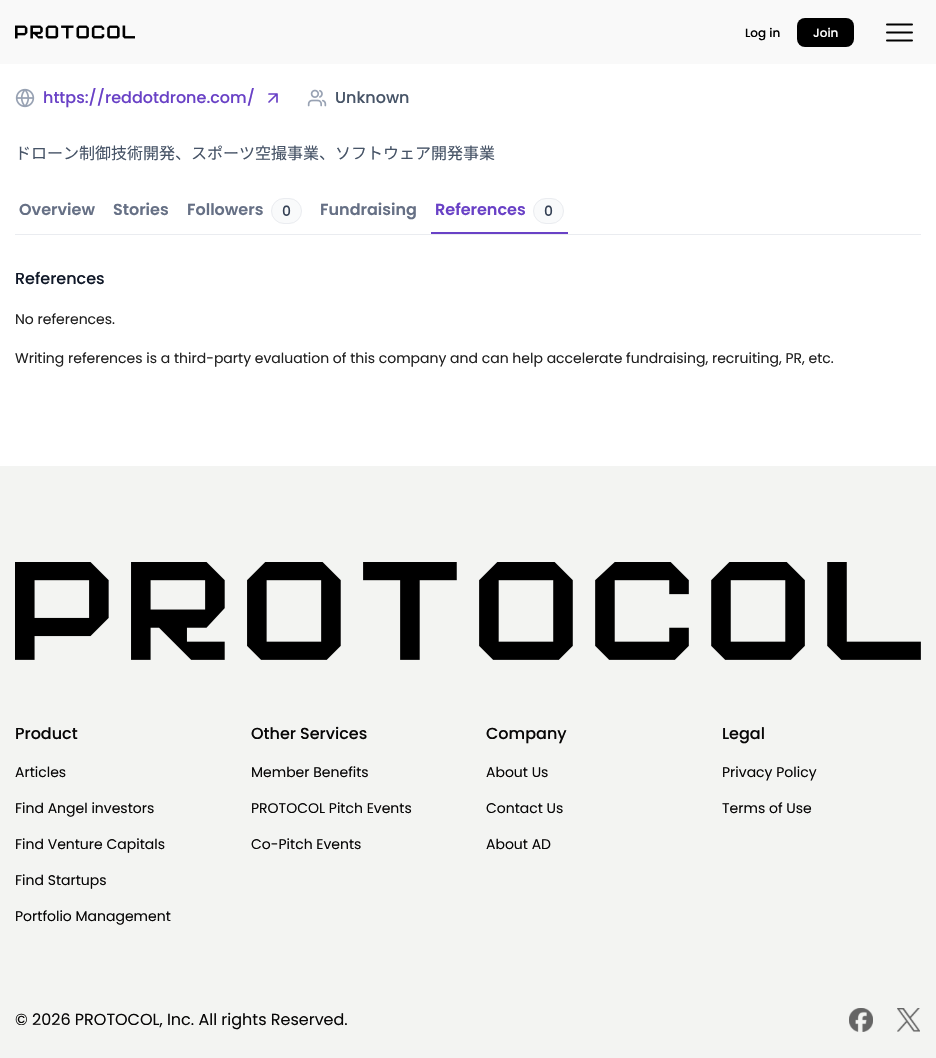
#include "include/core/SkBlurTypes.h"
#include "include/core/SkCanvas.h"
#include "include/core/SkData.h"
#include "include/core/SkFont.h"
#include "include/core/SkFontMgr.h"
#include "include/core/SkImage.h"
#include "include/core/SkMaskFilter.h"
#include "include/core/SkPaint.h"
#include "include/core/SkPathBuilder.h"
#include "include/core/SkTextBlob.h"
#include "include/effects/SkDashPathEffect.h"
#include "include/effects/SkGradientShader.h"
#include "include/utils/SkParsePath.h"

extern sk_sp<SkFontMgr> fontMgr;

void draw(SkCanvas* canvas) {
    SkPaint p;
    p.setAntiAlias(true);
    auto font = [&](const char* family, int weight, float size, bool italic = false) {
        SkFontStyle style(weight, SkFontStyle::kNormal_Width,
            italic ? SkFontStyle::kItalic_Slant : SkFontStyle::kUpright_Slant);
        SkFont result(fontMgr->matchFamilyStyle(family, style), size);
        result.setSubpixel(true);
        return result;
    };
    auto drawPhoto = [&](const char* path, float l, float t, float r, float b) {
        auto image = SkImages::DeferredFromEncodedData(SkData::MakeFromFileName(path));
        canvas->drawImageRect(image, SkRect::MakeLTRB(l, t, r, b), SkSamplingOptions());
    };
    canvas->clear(0xFFFFFFFF);
    p.setColor(0xFFF9F9F9);
    canvas->drawRect(SkRect::MakeLTRB(0, 0, 936, 64), p);
    drawPhoto("media/1.png", 15, 25, 135, 39);
    auto font1 = font("Poppins", 500, 12);
    p.setColor(0xFF000000);
    canvas->drawString("Log in", 745, 37, font1, p);
    canvas->drawRoundRect(SkRect::MakeLTRB(797, 18, 854, 47), 8, 8, p);
    p.setColor(0xFFFFFFFF);
    canvas->drawString("Join", 813, 37, font1, p);
    p.setStyle(SkPaint::kStroke_Style);
    p.setStrokeWidth(2);
    p.setStrokeCap(SkPaint::kRound_Cap);
    p.setColor(0xFF000000);
    canvas->drawPath(SkPathBuilder().moveTo(887, 24.5f).lineTo(912, 24.5f).moveTo(887, 32.5f).lineTo(912, 32.5f).moveTo(887, 40.5f).lineTo(912, 40.5f).detach(), p);
    drawPhoto("media/2.png", 15, 88, 35, 108);
    auto font2 = font("Poppins", 500, 16);
    p.setStyle(SkPaint::kFill_Style);
    p.setColor(0xFF6941C6);
    canvas->drawString("https://reddotdrone.com/", 43, 103, font2, p);
    p.setStyle(SkPaint::kStroke_Style);
    p.setStrokeWidth(1.7f);
    p.setStrokeJoin(SkPaint::kRound_Join);
    canvas->drawPath(SkPathBuilder().moveTo(269, 102).lineTo(277, 94).moveTo(277, 94).lineTo(269, 94).moveTo(277, 94).lineTo(277, 102).detach(), p);
    drawPhoto("media/3.png", 307, 89, 327, 107);
    p.setStyle(SkPaint::kFill_Style);
    p.setColor(0xFF475467);
    canvas->drawString("Unknown", 335, 103, font2, p);
    auto font3 = font("Noto Sans JP", 400, 16);
    canvas->drawString("ドローン制御技術開発、スポーツ空撮事業、ソフトウェア開発事業", 15, 159, font3, p);
    p.setColor(0xFFEAECF0);
    canvas->drawRect(SkRect::MakeLTRB(15, 234, 921, 235), p);
    auto font4 = font("Poppins", 600, 16);
    p.setColor(0xFF667085);
    {
        const struct { const char* s; float x, y; } items[] = {
            {"Overview", 19, 215},
            {"Stories", 113, 215},
            {"Followers", 187, 215},
        };
        for (auto [s, x, y] : items) {
            canvas->drawString(s, x, y, font4, p);
        }
    }
    p.setColor(0xFFF9FAFB);
    canvas->drawRoundRect(SkRect::MakeLTRB(271.5f, 198.5f, 301.5f, 223.5f), 12.5f, 12.5f, p);
    p.setStyle(SkPaint::kStroke_Style);
    p.setStrokeWidth(1);
    p.setStrokeCap(SkPaint::kButt_Cap);
    p.setStrokeJoin(SkPaint::kMiter_Join);
    p.setColor(0xFFEAECF0);
    canvas->drawRoundRect(SkRect::MakeLTRB(271.5f, 198.5f, 301.5f, 223.5f), 12.5f, 12.5f, p);
    auto font5 = font("Poppins", 500, 14);
    p.setStyle(SkPaint::kFill_Style);
    p.setColor(0xFF344054);
    canvas->drawString("0", 282, 216, font5, p);
    p.setColor(0xFF667085);
    canvas->drawString("Fundraising", 320, 215, font4, p);
    p.setColor(0xFF6941C6);
    canvas->drawRect(SkRect::MakeLTRB(431, 232, 568, 234), p);
    canvas->drawString("References", 435, 215, font4, p);
    p.setColor(0xFFF9FAFB);
    canvas->drawRoundRect(SkRect::MakeLTRB(533.5f, 198.5f, 563.5f, 223.5f), 12.5f, 12.5f, p);
    p.setStyle(SkPaint::kStroke_Style);
    p.setColor(0xFFEAECF0);
    canvas->drawRoundRect(SkRect::MakeLTRB(533.5f, 198.5f, 563.5f, 223.5f), 12.5f, 12.5f, p);
    p.setStyle(SkPaint::kFill_Style);
    p.setColor(0xFF344054);
    canvas->drawString("0", 544, 216, font5, p);
    p.setColor(0xFF101828);
    canvas->drawString("References", 15, 284, font2, p);
    auto font6 = font("Poppins", 400, 14);
    p.setColor(0xFF212121);
    canvas->drawString("No references.", 15, 324, font6, p);
    canvas->drawString("Writing references is a third-party evaluation of this company and can help accelerate fundraising, recruiting, PR, etc.", 15, 363, font6, p);
    p.setColor(0xFFF3F4F2);
    canvas->drawRect(SkRect::MakeLTRB(0, 466, 936, 1058), p);
    drawPhoto("media/4.png", 15, 562, 921, 660);
    p.setColor(0xFF080707);
    canvas->drawString("Product", 15, 739, font2, p);
    {
        const struct { const char* s; float x, y; } items[] = {
            {"Articles", 15, 777},
            {"Find Angel investors", 15, 813},
            {"Find Venture Capitals", 15, 849},
            {"Find Startups", 15, 885},
            {"Portfolio Management", 15, 921},
        };
        for (auto [s, x, y] : items) {
            canvas->drawString(s, x, y, font6, p);
        }
    }
    canvas->drawString("Other Services", 251, 739, font2, p);
    {
        const struct { const char* s; float x, y; } items[] = {
            {"Member Benefits", 251, 777},
            {"PROTOCOL Pitch Events", 251, 813},
            {"Co-Pitch Events", 251, 849},
        };
        for (auto [s, x, y] : items) {
            canvas->drawString(s, x, y, font6, p);
        }
    }
    canvas->drawString("Company", 486, 739, font2, p);
    {
        const struct { const char* s; float x, y; } items[] = {
            {"About Us", 486, 777},
            {"Contact Us", 486, 813},
            {"About AD", 486, 849},
        };
        for (auto [s, x, y] : items) {
            canvas->drawString(s, x, y, font6, p);
        }
    }
    canvas->drawString("Legal", 722, 739, font2, p);
    canvas->drawString("Privacy Policy", 722, 777, font6, p);
    canvas->drawString("Terms of Use", 722, 813, font6, p);
    auto font7 = font("Poppins", 400, 16);
    canvas->drawString("© 2026 PROTOCOL, Inc. All rights Reserved.", 15, 1025, font7, p);
    drawPhoto("media/5.png", 849, 1008, 873, 1032);
    drawPhoto("media/6.png", 897, 1008, 920, 1032);
}
